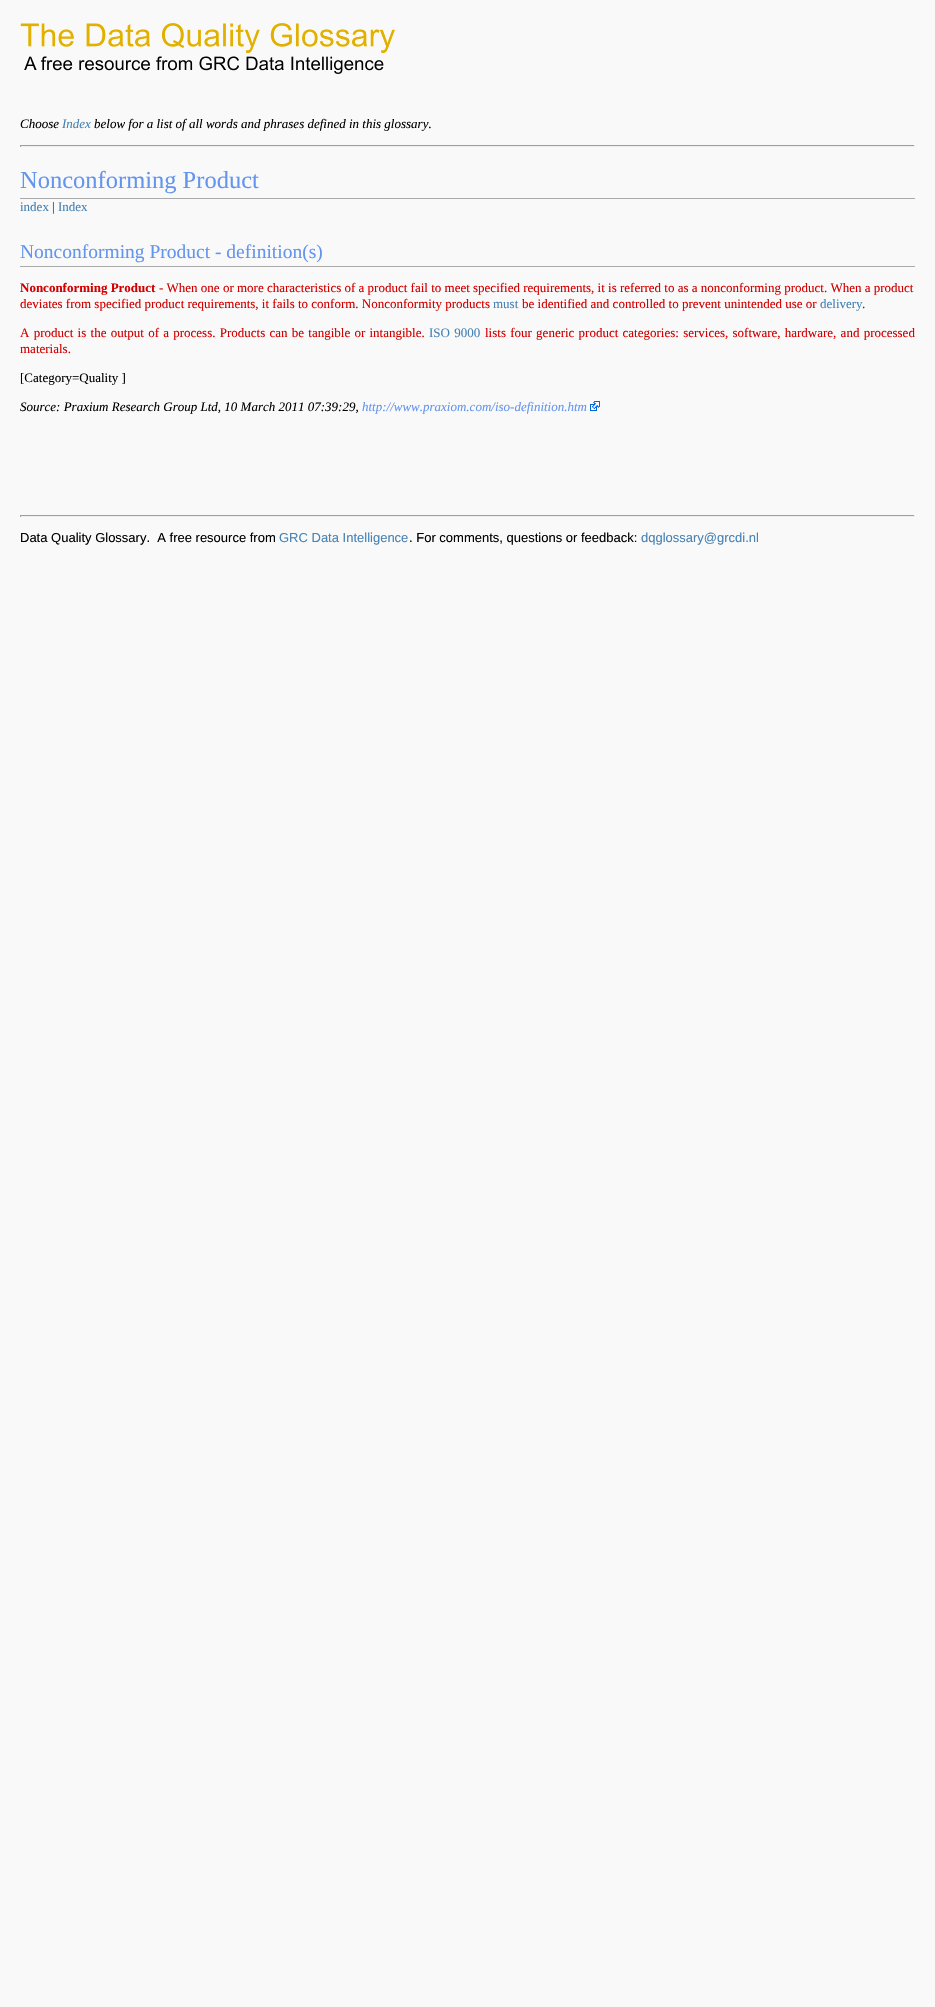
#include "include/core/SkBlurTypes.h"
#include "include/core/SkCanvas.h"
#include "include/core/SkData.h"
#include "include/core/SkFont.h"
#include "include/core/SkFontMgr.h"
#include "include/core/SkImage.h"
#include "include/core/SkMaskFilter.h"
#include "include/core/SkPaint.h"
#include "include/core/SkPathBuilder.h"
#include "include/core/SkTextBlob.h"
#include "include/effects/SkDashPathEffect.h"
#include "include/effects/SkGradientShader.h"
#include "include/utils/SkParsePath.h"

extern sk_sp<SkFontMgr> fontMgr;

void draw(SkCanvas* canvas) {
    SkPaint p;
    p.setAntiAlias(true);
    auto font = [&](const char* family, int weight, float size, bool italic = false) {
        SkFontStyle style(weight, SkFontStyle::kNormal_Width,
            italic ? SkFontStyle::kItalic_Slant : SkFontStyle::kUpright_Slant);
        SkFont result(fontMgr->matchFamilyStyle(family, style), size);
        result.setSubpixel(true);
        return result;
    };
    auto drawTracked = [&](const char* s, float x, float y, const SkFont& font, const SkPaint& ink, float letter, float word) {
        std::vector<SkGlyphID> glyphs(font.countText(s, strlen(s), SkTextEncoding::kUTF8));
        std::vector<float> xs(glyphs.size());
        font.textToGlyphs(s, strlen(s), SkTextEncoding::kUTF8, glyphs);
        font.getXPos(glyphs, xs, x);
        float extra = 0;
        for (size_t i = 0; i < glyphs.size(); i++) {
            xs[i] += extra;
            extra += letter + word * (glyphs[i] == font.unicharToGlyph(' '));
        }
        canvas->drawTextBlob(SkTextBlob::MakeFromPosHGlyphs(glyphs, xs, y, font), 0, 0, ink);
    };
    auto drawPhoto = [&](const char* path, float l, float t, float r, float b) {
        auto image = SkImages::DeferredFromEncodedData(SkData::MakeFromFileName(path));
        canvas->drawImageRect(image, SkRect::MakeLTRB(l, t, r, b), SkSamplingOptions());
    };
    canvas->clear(0xFFF9F9F9);
    drawPhoto("media/1.png", 20, 23, 395, 74);
    auto font1 = font("Liberation Serif", 400, 13, true);
    p.setColor(0xFF000000);
    canvas->drawString("Choose", 20, 128, font1, p);
    p.setColor(0xFF4682B4);
    canvas->drawString("Index", 62, 128, font1, p);
    p.setColor(0xFF000000);
    canvas->drawString("below for a list of all words and phrases defined in this glossary.", 94, 128, font1, p);
    {
        const struct { float l, t, r, b; SkColor color; } items[] = {
            {20, 145, 915, 146, 0xFF9F9F9F},
            {914, 145, 915, 147, 0xFFEEEEEE},
            {20, 146, 915, 147, 0xFFEEEEEE},
            {20, 145, 21, 147, 0xFF9F9F9F},
            {20, 198, 915, 199, 0xFFAAAAAA},
        };
        for (auto [l, t, r, b, color] : items) {
            p.setColor(color);
            canvas->drawRect(SkRect::MakeLTRB(l, t, r, b), p);
        }
    }
    auto font2 = font("Liberation Serif", 400, 24.5f);
    p.setColor(0xFF6495ED);
    canvas->drawString("Nonconforming Product", 20, 188, font2, p);
    auto font3 = font("Liberation Serif", 400, 13);
    p.setColor(0xFF4682B4);
    canvas->drawString("index", 20, 211, font3, p);
    p.setColor(0xFF333333);
    canvas->drawString("|", 52, 211, font3, p);
    p.setColor(0xFF4682B4);
    canvas->drawString("Index", 58, 211, font3, p);
    p.setColor(0xFFAAAAAA);
    canvas->drawRect(SkRect::MakeLTRB(20, 266, 915, 267), p);
    auto font4 = font("Liberation Serif", 400, 19.5f);
    p.setColor(0xFF6495ED);
    canvas->drawString("Nonconforming Product - definition(s)", 20, 258, font4, p);
    auto font5 = font("Liberation Serif", 700, 13);
    p.setColor(0xFFD20000);
    canvas->drawString("Nonconforming Product", 20, 292, font5, p);
    canvas->drawString("- When one or more characteristics of a product fail to meet specified requirements, it is referred to as a nonconforming product. When a product", 159, 292, font3, p);
    canvas->drawString("deviates from specified product requirements, it fails to conform. Nonconformity products", 20, 308, font3, p);
    p.setColor(0xFF4682B4);
    canvas->drawString("must", 493, 308, font3, p);
    p.setColor(0xFFD20000);
    canvas->drawString("be identified and controlled to prevent unintended use or", 522, 308, font3, p);
    p.setColor(0xFF4682B4);
    canvas->drawString("delivery", 820, 308, font3, p);
    p.setColor(0xFFD20000);
    canvas->drawString(".", 862, 308, font3, p);
    drawTracked("A product is the output of a process. Products can be tangible or intangible.", 20, 337, font3, p, 0, 1);
    p.setColor(0xFF4682B4);
    drawTracked("ISO 9000", 429, 337, font3, p, 0, 1);
    p.setColor(0xFFD20000);
    drawTracked("lists four generic product categories: services, software, hardware, and processed", 485, 337, font3, p, 0, 1);
    canvas->drawString("materials.", 20, 353, font3, p);
    p.setColor(0xFF000000);
    canvas->drawString("[Category=Quality ]", 20, 382, font3, p);
    canvas->drawString("Source: Praxium Research Group Ltd, 10 March 2011 07:39:29,", 20, 411, font1, p);
    p.setColor(0xFF6495ED);
    canvas->drawString("http://www.praxiom.com/iso-definition.htm", 362, 411, font1, p);
    drawPhoto("media/2.png", 590, 401, 600, 411);
    {
        const struct { float l, t, r, b; SkColor color; } items[] = {
            {20, 515, 915, 516, 0xFF9F9F9F},
            {914, 515, 915, 517, 0xFFEEEEEE},
            {20, 516, 915, 517, 0xFFEEEEEE},
            {20, 515, 21, 517, 0xFF9F9F9F},
        };
        for (auto [l, t, r, b, color] : items) {
            p.setColor(color);
            canvas->drawRect(SkRect::MakeLTRB(l, t, r, b), p);
        }
    }
    auto font6 = font("Liberation Sans", 400, 13);
    p.setColor(0xFF000000);
    canvas->drawString("Data Quality Glossary.  A free resource from", 20, 542, font6, p);
    p.setColor(0xFF4682B4);
    canvas->drawString("GRC Data Intelligence", 279, 542, font6, p);
    p.setColor(0xFF000000);
    canvas->drawString(". For comments, questions or feedback:", 409, 542, font6, p);
    p.setColor(0xFF4682B4);
    canvas->drawString("dqglossary@grcdi.nl", 641, 542, font6, p);
}
